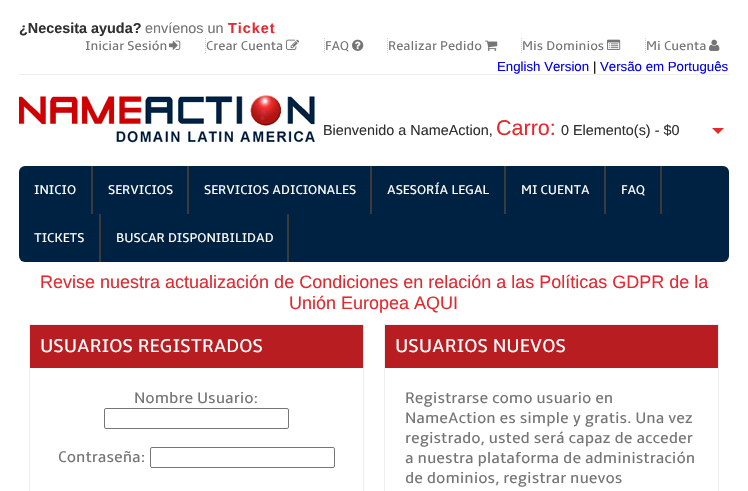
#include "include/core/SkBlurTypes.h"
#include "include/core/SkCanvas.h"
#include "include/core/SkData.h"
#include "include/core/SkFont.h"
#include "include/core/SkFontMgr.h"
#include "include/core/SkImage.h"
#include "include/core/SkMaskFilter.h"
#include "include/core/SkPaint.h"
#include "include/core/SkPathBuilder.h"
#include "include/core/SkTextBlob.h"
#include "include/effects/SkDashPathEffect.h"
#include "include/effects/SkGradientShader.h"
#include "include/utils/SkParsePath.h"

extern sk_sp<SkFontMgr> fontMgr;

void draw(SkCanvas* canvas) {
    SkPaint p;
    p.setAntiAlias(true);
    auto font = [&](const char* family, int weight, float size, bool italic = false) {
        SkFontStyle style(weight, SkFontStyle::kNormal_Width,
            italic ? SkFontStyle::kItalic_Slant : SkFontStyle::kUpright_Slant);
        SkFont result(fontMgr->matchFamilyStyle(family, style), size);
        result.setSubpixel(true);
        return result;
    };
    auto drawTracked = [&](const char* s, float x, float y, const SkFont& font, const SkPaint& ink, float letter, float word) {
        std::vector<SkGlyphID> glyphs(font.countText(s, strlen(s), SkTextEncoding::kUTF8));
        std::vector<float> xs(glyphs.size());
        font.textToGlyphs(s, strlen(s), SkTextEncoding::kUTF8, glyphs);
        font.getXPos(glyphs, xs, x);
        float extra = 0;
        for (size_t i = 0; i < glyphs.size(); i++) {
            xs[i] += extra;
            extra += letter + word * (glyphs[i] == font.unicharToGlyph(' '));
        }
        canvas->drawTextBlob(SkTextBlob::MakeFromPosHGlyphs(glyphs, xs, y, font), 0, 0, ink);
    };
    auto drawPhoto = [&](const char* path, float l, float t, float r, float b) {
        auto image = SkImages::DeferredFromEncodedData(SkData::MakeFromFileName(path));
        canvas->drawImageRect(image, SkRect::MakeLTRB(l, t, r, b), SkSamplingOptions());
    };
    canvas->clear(0xFFFFFFFF);
    p.setColor(0xFFEEEEEE);
    canvas->drawRect(SkRect::MakeLTRB(19, 74, 729, 75), p);
    auto font1 = font("Liberation Sans", 700, 14.4f);
    p.setColor(0xFF303030);
    canvas->drawString("¿Necesita ayuda?", 19, 33, font1, p);
    auto font2 = font("Liberation Sans", 400, 14.4f);
    p.setColor(0xFF757575);
    canvas->drawString("envíenos un", 145, 33, font2, p);
    p.setColor(0xFFE4292F);
    drawTracked("Ticket", 228, 33, font1, p, 1, 0);
    auto font3 = font("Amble", 400, 13.25f);
    p.setColor(0xFF757575);
    canvas->drawString("Iniciar Sesión", 85, 50, font3, p);
    drawPhoto("media/1.png", 169, 40, 181, 50);
    p.setStyle(SkPaint::kStroke_Style);
    p.setStrokeWidth(1);
    p.setColor(0xFFCCCCCC);
    p.setPathEffect(SkDashPathEffect::Make({{1, 1}}, 0));
    canvas->drawPath(SkPathBuilder().moveTo(205.5f, 38).lineTo(205.5f, 54).detach(), p);
    p.setPathEffect(nullptr);
    p.setStyle(SkPaint::kFill_Style);
    p.setColor(0xFF757575);
    canvas->drawString("Crear Cuenta", 206, 50, font3, p);
    drawPhoto("media/2.png", 286, 39, 299, 50);
    p.setStyle(SkPaint::kStroke_Style);
    p.setColor(0xFFCCCCCC);
    p.setPathEffect(SkDashPathEffect::Make({{1, 1}}, 0));
    canvas->drawPath(SkPathBuilder().moveTo(324.5f, 38).lineTo(324.5f, 54).detach(), p);
    p.setPathEffect(nullptr);
    p.setStyle(SkPaint::kFill_Style);
    p.setColor(0xFF757575);
    canvas->drawString("FAQ", 325, 50, font3, p);
    drawPhoto("media/3.png", 352, 39, 364, 51);
    p.setStyle(SkPaint::kStroke_Style);
    p.setColor(0xFFCCCCCC);
    p.setPathEffect(SkDashPathEffect::Make({{1, 1}}, 0));
    canvas->drawPath(SkPathBuilder().moveTo(387.5f, 38).lineTo(387.5f, 54).detach(), p);
    p.setPathEffect(nullptr);
    p.setStyle(SkPaint::kFill_Style);
    p.setColor(0xFF757575);
    canvas->drawString("Realizar Pedido", 388, 50, font3, p);
    drawPhoto("media/4.png", 485, 40, 498, 51);
    p.setStyle(SkPaint::kStroke_Style);
    p.setColor(0xFFCCCCCC);
    p.setPathEffect(SkDashPathEffect::Make({{1, 1}}, 0));
    canvas->drawPath(SkPathBuilder().moveTo(521.5f, 38).lineTo(521.5f, 54).detach(), p);
    p.setPathEffect(nullptr);
    p.setStyle(SkPaint::kFill_Style);
    p.setColor(0xFF757575);
    canvas->drawString("Mis Dominios", 522, 50, font3, p);
    drawPhoto("media/5.png", 607, 39, 621, 50);
    p.setStyle(SkPaint::kStroke_Style);
    p.setColor(0xFFCCCCCC);
    p.setPathEffect(SkDashPathEffect::Make({{1, 1}}, 0));
    canvas->drawPath(SkPathBuilder().moveTo(645.5f, 38).lineTo(645.5f, 54).detach(), p);
    p.setPathEffect(nullptr);
    p.setStyle(SkPaint::kFill_Style);
    p.setColor(0xFF757575);
    canvas->drawString("Mi Cuenta", 646, 50, font3, p);
    drawPhoto("media/6.png", 709, 39, 720, 51);
    auto font4 = font("Liberation Sans", 400, 13.25f);
    p.setColor(0xFF0000EE);
    canvas->drawString("English Version", 497, 71, font4, p);
    p.setColor(0xFF000000);
    canvas->drawString("|", 593, 71, font4, p);
    p.setColor(0xFF0000EE);
    canvas->drawString("Versão em Português", 600, 71, font4, p);
    drawPhoto("media/7.png", 19, 95, 315, 143);
    p.setColor(0xFF303030);
    canvas->drawString("Bienvenido a NameAction,", 323, 135, font2, p);
    auto font5 = font("Liberation Sans", 400, 21.5f);
    p.setColor(0xFFE4292F);
    canvas->drawString("Carro:", 496, 135, font5, p);
    p.setColor(0xFF303030);
    canvas->drawString("0 Elemento(s) - $0", 561, 135, font2, p);
    p.setColor(0xFFE4292F);
    canvas->drawPath(SkPathBuilder().moveTo(712, 128).lineTo(724, 128).lineTo(718, 134).close().detach(), p);
    p.setColor(0xFF002242);
    canvas->drawRoundRect(SkRect::MakeLTRB(19, 166, 729, 262), 6, 6, p);
    p.setColor(0xFF3B3B3B);
    canvas->drawRect(SkRect::MakeLTRB(91, 166, 93, 214), p);
    p.setColor(0xFFFFFFFF);
    canvas->drawString("INICIO", 34, 194, font3, p);
    p.setColor(0xFF3B3B3B);
    canvas->drawRect(SkRect::MakeLTRB(187, 166, 189, 214), p);
    p.setColor(0xFFFFFFFF);
    canvas->drawString("SERVICIOS", 108, 194, font3, p);
    p.setColor(0xFF3B3B3B);
    canvas->drawRect(SkRect::MakeLTRB(370, 166, 372, 214), p);
    p.setColor(0xFFFFFFFF);
    canvas->drawString("SERVICIOS ADICIONALES", 204, 194, font3, p);
    p.setColor(0xFF3B3B3B);
    canvas->drawRect(SkRect::MakeLTRB(504, 166, 506, 214), p);
    p.setColor(0xFFFFFFFF);
    canvas->drawString("ASESORÍA LEGAL", 387, 194, font3, p);
    p.setColor(0xFF3B3B3B);
    canvas->drawRect(SkRect::MakeLTRB(604, 166, 606, 214), p);
    p.setColor(0xFFFFFFFF);
    canvas->drawString("MI CUENTA", 521, 194, font3, p);
    p.setColor(0xFF3B3B3B);
    canvas->drawRect(SkRect::MakeLTRB(660, 166, 662, 214), p);
    p.setColor(0xFFFFFFFF);
    canvas->drawString("FAQ", 621, 194, font3, p);
    p.setColor(0xFF3B3B3B);
    canvas->drawRect(SkRect::MakeLTRB(99, 214, 101, 262), p);
    p.setColor(0xFFFFFFFF);
    canvas->drawString("TICKETS", 34, 242, font3, p);
    p.setColor(0xFF3B3B3B);
    canvas->drawRect(SkRect::MakeLTRB(287, 214, 289, 262), p);
    p.setColor(0xFFFFFFFF);
    canvas->drawString("BUSCAR DISPONIBILIDAD", 116, 242, font3, p);
    auto font6 = font("Liberation Sans", 400, 18);
    p.setColor(0xFFE4292F);
    canvas->drawString("Revise nuestra actualización de Condiciones en relación a las Políticas GDPR de la", 40, 288, font6, p);
    canvas->drawString("Unión Europea AQUI", 289, 309, font6, p);
    p.setStyle(SkPaint::kStroke_Style);
    p.setColor(0xFFEEEEEE);
    canvas->drawRect(SkRect::MakeLTRB(29.5f, 324.5f, 363.5f, 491.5f), p);
    p.setStyle(SkPaint::kFill_Style);
    p.setColor(0xFFB81D22);
    canvas->drawRect(SkRect::MakeLTRB(30, 325, 363, 368), p);
    auto font7 = font("Amble", 400, 19.25f);
    p.setColor(0xFFFFFFFF);
    canvas->drawString("USUARIOS REGISTRADOS", 40, 352, font7, p);
    auto font8 = font("Amble", 400, 16);
    p.setColor(0xFF757575);
    canvas->drawString("Nombre Usuario:", 134, 403, font8, p);
    p.setStyle(SkPaint::kStroke_Style);
    p.setColor(0xFF767676);
    canvas->drawRoundRect(SkRect::MakeLTRB(104.5f, 408.5f, 288.5f, 428.5f), 1.5f, 1.5f, p);
    p.setStyle(SkPaint::kFill_Style);
    p.setColor(0xFF757575);
    canvas->drawString("Contraseña:", 58, 462, font8, p);
    p.setStyle(SkPaint::kStroke_Style);
    p.setColor(0xFF767676);
    canvas->drawRoundRect(SkRect::MakeLTRB(150.5f, 447.5f, 334.5f, 467.5f), 1.5f, 1.5f, p);
    p.setColor(0xFFEEEEEE);
    canvas->drawRect(SkRect::MakeLTRB(384.5f, 324.5f, 718.5f, 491.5f), p);
    p.setStyle(SkPaint::kFill_Style);
    p.setColor(0xFFB81D22);
    canvas->drawRect(SkRect::MakeLTRB(385, 325, 718, 368), p);
    p.setColor(0xFFFFFFFF);
    canvas->drawString("USUARIOS NUEVOS", 395, 352, font7, p);
    p.setColor(0xFF757575);
    {
        const struct { const char* s; float x, y; } items[] = {
            {"Registrarse como usuario en", 405, 403},
            {"NameAction es simple y gratis. Una vez", 405, 423},
            {"registrado, usted será capaz de acceder", 405, 443},
            {"a nuestra plataforma de administración", 405, 463},
            {"de dominios, registrar nuevos", 405, 483},
        };
        for (auto [s, x, y] : items) {
            canvas->drawString(s, x, y, font8, p);
        }
    }
}
